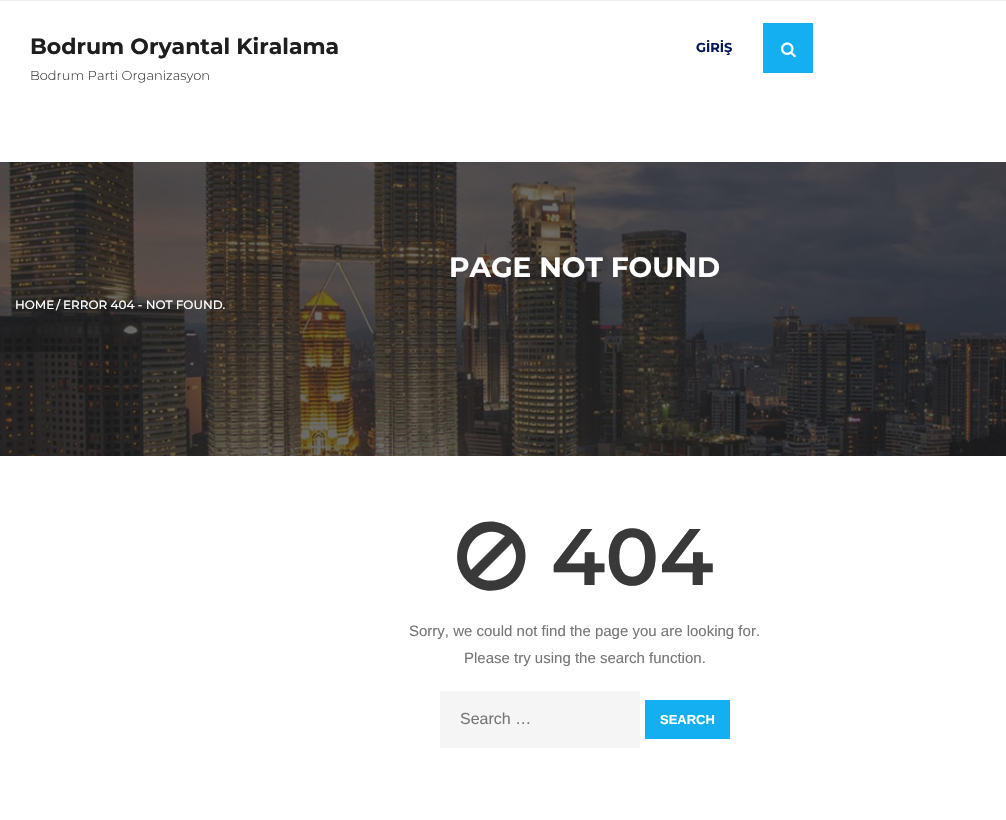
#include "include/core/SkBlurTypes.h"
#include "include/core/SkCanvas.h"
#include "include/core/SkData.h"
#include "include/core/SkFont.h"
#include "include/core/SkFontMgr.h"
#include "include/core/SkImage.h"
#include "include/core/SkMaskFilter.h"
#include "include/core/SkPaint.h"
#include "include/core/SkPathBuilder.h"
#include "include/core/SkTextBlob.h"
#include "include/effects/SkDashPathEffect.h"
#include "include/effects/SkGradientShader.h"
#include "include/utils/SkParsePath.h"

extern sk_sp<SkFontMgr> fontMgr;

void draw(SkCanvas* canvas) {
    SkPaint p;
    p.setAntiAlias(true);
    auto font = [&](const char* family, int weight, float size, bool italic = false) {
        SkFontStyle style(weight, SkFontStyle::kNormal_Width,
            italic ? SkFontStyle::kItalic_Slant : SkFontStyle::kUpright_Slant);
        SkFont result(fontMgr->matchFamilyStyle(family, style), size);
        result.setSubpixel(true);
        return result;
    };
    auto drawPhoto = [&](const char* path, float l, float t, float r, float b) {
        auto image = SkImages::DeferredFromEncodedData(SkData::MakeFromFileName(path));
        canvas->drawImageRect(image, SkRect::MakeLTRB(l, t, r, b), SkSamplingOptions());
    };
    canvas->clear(0xFFFFFFFF);
    p.setColor(0xFFEEEEEE);
    canvas->drawRect(SkRect::MakeLTRB(0, 0, 1006, 1), p);
    auto font1 = font("Montserrat", 700, 22);
    p.setColor(0xFF1E1E1E);
    canvas->drawString("Bodrum Oryantal Kiralama", 30, 54, font1, p);
    auto font2 = font("Montserrat", 300, 13);
    p.setColor(0xFF3A3939);
    canvas->drawString("Bodrum Parti Organizasyon", 30, 80, font2, p);
    auto font3 = font("Montserrat", 700, 13);
    p.setColor(0xFF001659);
    canvas->drawString("GİRİŞ", 696, 52, font3, p);
    p.setColor(0xFF13AFF0);
    canvas->drawRect(SkRect::MakeLTRB(763, 23, 813, 73), p);
    drawPhoto("media/1.png", 781, 42, 796, 58);
    drawPhoto("media/2.png", 0, 162, 1006, 456);
    auto font4 = font("Montserrat", 700, 28);
    p.setColor(0xFFFFFFFF);
    canvas->drawString("PAGE NOT FOUND", 449, 277, font4, p);
    auto font5 = font("Montserrat", 500, 12);
    {
        const struct { const char* s; float x, y; } items[] = {
            {"HOME", 15, 309},
            {"/", 56, 309},
            {"ERROR 404 - NOT FOUND.", 63, 309},
        };
        for (auto [s, x, y] : items) {
            canvas->drawString(s, x, y, font5, p);
        }
    }
    p.setColor(0xFF3A3939);
    canvas->drawPath(SkPathBuilder().moveTo(516, 556).cubicTo(516, 552, 514, 547, 512, 543).lineTo(478, 577).cubicTo(494, 587, 516, 575, 516, 556).close().moveTo(471, 570).lineTo(505, 536).cubicTo(483, 521, 457, 548, 471, 570).close().moveTo(523, 543).cubicTo(530, 560, 522, 581, 505, 588).cubicTo(497, 591, 488, 592, 480, 589).cubicTo(441, 574, 456, 516, 496, 522).cubicTo(508, 524, 518, 532, 523, 543).close().detach(), p);
    auto font6 = font("Montserrat", 600, 80);
    canvas->drawString("404", 551, 585, font6, p);
    auto font7 = font("Liberation Sans", 400, 15);
    p.setColor(0xFF767676);
    canvas->drawString("Sorry, we could not find the page you are looking for.", 409, 636, font7, p);
    canvas->drawString("Please try using the search function.", 464, 663, font7, p);
    p.setColor(0xFFF5F5F5);
    canvas->drawRect(SkRect::MakeLTRB(440, 691, 640, 748), p);
    auto font8 = font("Liberation Sans", 400, 16);
    p.setColor(0xFF767676);
    canvas->drawString("Search …", 460, 724, font8, p);
    p.setColor(0xFF13AFF0);
    canvas->drawRect(SkRect::MakeLTRB(645, 700, 730, 739), p);
    auto font9 = font("Liberation Sans", 700, 13);
    p.setColor(0xFFFFFFFF);
    canvas->drawString("SEARCH", 660, 724, font9, p);
}
